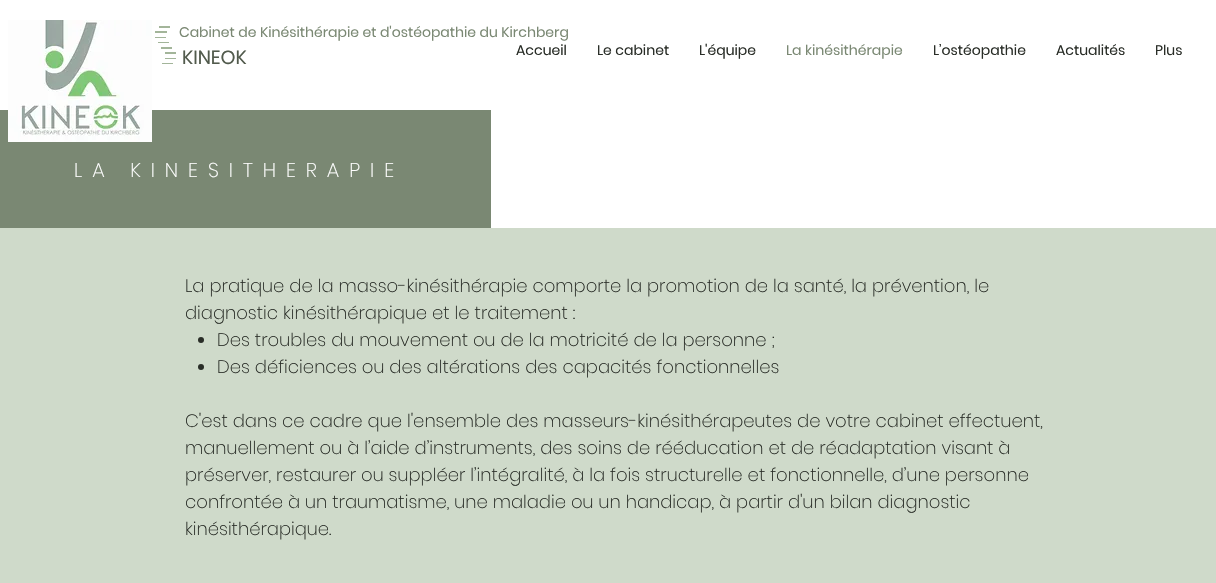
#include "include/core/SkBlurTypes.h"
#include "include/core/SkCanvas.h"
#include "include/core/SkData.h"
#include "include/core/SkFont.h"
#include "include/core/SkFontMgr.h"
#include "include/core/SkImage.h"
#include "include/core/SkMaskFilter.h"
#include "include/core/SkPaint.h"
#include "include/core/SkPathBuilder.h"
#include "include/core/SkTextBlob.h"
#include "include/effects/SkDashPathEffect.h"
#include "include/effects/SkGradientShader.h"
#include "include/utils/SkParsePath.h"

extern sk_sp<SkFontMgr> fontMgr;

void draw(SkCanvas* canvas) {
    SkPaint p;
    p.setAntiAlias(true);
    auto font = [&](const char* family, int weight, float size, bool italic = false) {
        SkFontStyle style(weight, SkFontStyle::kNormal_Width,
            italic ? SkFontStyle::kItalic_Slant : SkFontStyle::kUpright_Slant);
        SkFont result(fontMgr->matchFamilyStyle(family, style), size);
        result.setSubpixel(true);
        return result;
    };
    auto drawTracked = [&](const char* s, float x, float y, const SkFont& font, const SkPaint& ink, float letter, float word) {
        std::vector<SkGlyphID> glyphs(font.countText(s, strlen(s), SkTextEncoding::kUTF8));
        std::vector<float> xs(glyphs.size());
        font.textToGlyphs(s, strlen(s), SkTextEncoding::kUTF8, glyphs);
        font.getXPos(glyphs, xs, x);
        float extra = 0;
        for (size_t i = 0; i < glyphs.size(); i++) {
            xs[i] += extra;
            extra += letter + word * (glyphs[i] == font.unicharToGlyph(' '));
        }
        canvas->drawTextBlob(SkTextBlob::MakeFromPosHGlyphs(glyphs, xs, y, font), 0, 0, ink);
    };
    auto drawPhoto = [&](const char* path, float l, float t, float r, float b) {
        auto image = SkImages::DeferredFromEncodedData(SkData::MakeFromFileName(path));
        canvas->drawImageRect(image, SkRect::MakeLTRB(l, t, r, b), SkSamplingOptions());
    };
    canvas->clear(0xFFCFDACA);
    p.setColor(0xFFFFFFFF);
    canvas->drawRect(SkRect::MakeLTRB(0, 0, 1216, 110), p);
    p.setColor(0xFF7A8873);
    canvas->drawRect(SkRect::MakeLTRB(0, 110, 491, 228), p);
    drawPhoto("media/1.png", 8, 20, 152, 142);
    {
        const struct { float l, t, r, b; SkColor color; } items[] = {
            {159, 26, 170, 28, 0xFFA3B59A},
            {155, 31, 167, 33, 0xFFA3B59A},
            {155, 37, 166, 38, 0xFFA3B59A},
            {158, 42, 169, 43, 0xFFA3B59A},
            {162, 63, 173, 64, 0xFFA3B59A},
            {165, 58, 176, 59, 0xFFA3B59A},
            {165, 52, 176, 54, 0xFFA3B59A},
            {161, 47, 172, 49, 0xFFA3B59A},
        };
        for (auto [l, t, r, b, color] : items) {
            p.setColor(color);
            canvas->drawRect(SkRect::MakeLTRB(l, t, r, b), p);
        }
    }
    auto font1 = font("Poppins", 400, 14);
    p.setColor(0xFF7A8873);
    canvas->drawString("Cabinet de Kinésithérapie et d'ostéopathie du Kirchberg", 179, 37, font1, p);
    auto font2 = font("Poppins", 400, 19);
    p.setColor(0xFF525B4D);
    canvas->drawString("KINEOK", 182, 64, font2, p);
    p.setColor(0xFF292D27);
    {
        const struct { const char* s; float x, y; } items[] = {
            {"Accueil", 516, 55},
            {"Le cabinet", 597, 55},
            {"L'équipe", 699, 55},
        };
        for (auto [s, x, y] : items) {
            canvas->drawString(s, x, y, font1, p);
        }
    }
    p.setColor(0xFF7A8873);
    canvas->drawString("La kinésithérapie", 786, 55, font1, p);
    p.setColor(0xFF292D27);
    {
        const struct { const char* s; float x, y; } items[] = {
            {"L’ostéopathie", 933, 55},
            {"Actualités", 1056, 55},
            {"Plus", 1155, 55},
        };
        for (auto [s, x, y] : items) {
            canvas->drawString(s, x, y, font1, p);
        }
    }
    auto font3 = font("Poppins", 200, 20);
    p.setColor(0xFFFFFFFF);
    drawTracked("LA KINESITHERAPIE", 74, 177, font3, p, 10, 0);
    canvas->drawRect(SkRect::MakeLTRB(491, 110, 1216, 228), p);
    auto font4 = font("Poppins", 200, 18);
    p.setColor(0xFF292D27);
    canvas->drawString("La pratique de la masso-kinésithérapie comporte la promotion de la santé, la prévention, le", 185, 292, font4, p);
    canvas->drawString("diagnostic kinésithérapique et le traitement :", 185, 319, font4, p);
    canvas->drawCircle(201, 340, 3, p);
    canvas->drawString("Des troubles du mouvement ou de la motricité de la personne ;", 217, 346, font4, p);
    canvas->drawCircle(201, 367, 3, p);
    {
        const struct { const char* s; float x, y; } items[] = {
            {"Des déficiences ou des altérations des capacités fonctionnelles", 217, 373},
            {"C'est dans ce cadre que l'ensemble des masseurs-kinésithérapeutes de votre cabinet effectuent,", 185, 427},
            {"manuellement ou à l’aide d’instruments, des soins de rééducation et de réadaptation visant à", 185, 454},
            {"préserver, restaurer ou suppléer l’intégralité, à la fois structurelle et fonctionnelle, d’une personne", 185, 481},
            {"confrontée à un traumatisme, une maladie ou un handicap, à partir d'un bilan diagnostic", 185, 508},
            {"kinésithérapique.", 185, 535},
        };
        for (auto [s, x, y] : items) {
            canvas->drawString(s, x, y, font4, p);
        }
    }
}
